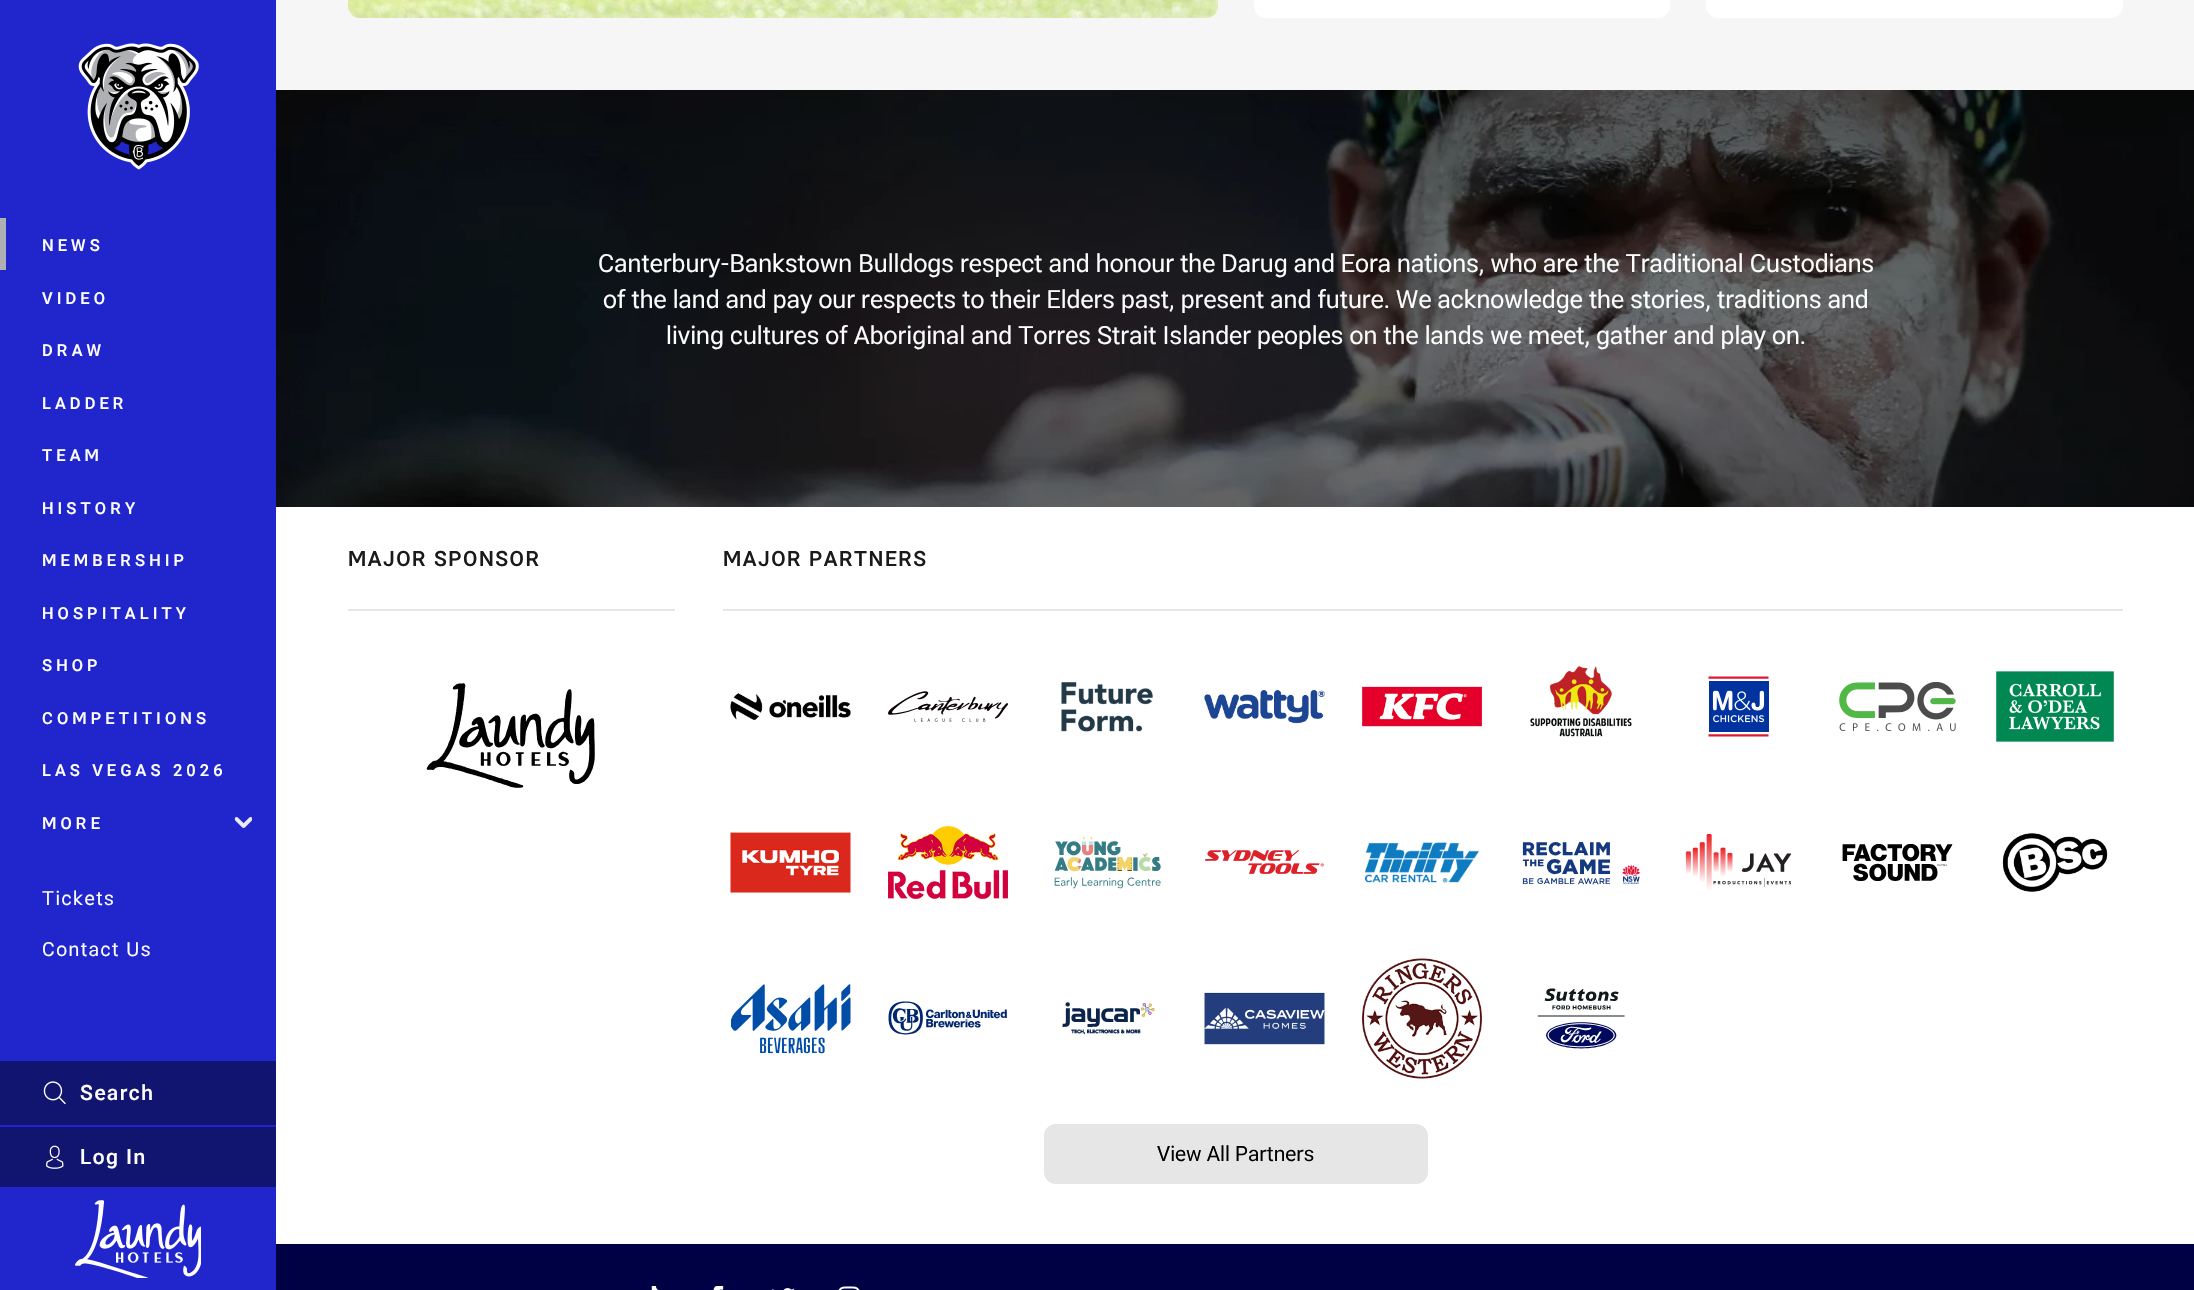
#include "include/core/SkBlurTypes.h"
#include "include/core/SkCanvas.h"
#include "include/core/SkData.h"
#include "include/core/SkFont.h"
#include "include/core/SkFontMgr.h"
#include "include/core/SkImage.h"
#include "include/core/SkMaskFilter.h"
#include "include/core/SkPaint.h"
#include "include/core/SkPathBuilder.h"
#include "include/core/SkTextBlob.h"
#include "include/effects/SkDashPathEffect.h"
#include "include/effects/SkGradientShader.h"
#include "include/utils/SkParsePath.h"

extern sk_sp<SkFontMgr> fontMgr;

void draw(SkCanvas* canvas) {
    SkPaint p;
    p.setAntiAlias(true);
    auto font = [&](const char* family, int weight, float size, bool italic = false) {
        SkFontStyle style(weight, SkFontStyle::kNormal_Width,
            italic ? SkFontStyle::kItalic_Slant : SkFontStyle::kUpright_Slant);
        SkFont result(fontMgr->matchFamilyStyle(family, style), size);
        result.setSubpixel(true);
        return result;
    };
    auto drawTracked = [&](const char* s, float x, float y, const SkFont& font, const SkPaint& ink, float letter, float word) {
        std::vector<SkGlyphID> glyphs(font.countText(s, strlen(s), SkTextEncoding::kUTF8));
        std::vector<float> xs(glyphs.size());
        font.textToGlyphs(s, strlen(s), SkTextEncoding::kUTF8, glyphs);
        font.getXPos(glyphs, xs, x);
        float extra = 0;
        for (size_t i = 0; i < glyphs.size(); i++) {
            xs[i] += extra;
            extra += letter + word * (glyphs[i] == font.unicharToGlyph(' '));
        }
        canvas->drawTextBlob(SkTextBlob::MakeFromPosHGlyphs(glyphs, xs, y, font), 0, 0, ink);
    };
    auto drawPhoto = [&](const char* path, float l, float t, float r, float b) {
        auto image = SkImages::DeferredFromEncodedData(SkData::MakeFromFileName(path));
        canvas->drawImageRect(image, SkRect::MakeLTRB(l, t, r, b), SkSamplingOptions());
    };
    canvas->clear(0xFFF6F6F6);
    p.setColor(0xFF2026CB);
    canvas->drawRect(SkRect::MakeLTRB(0, 0, 276, 1290), p);
    drawPhoto("media/1.png", 78, 43, 199, 170);
    p.setColor(0xFFAFB0B3);
    canvas->drawRect(SkRect::MakeLTRB(0, 218, 6, 270), p);
    auto font1 = font("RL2", 500, 16.5f);
    p.setColor(0xFFFFFFFF);
    {
        const struct { const char* s; float x, y; } items[] = {
            {"NEWS", 42, 251},
            {"VIDEO", 42, 304},
            {"DRAW", 42, 356},
            {"LADDER", 42, 409},
            {"TEAM", 42, 461},
            {"HISTORY", 42, 514},
            {"MEMBERSHIP", 42, 566},
            {"HOSPITALITY", 42, 619},
            {"SHOP", 42, 671},
            {"COMPETITIONS", 42, 724},
            {"LAS VEGAS 2026", 42, 776},
            {"MORE", 42, 829},
        };
        for (auto [s, x, y] : items) {
            drawTracked(s, x, y, font1, p, 4.1f, 0);
        }
    }
    drawPhoto("media/2.png", 234, 817, 252, 828);
    auto font2 = font("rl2", 400, 19.5f);
    drawTracked("Tickets", 42, 905, font2, p, 1.5f, 0);
    drawTracked("Contact Us", 42, 956, font2, p, 1.5f, 0);
    p.setColor(0xFF121570);
    canvas->drawRect(SkRect::MakeLTRB(0, 1061, 276, 1125), p);
    drawPhoto("media/3.png", 43, 1081, 66, 1105);
    auto font3 = font("RL2", 500, 21);
    p.setColor(0xFFFFFFFF);
    drawTracked("Search", 80, 1100, font3, p, 1.5f, 0);
    p.setColor(0xFF121570);
    canvas->drawRect(SkRect::MakeLTRB(0, 1127, 276, 1187), p);
    drawPhoto("media/4.png", 46, 1145, 64, 1169);
    p.setColor(0xFFFFFFFF);
    drawTracked("Log In", 80, 1164, font3, p, 1.5f, 0);
    drawPhoto("media/5.png", 75, 1200, 201, 1278);
    drawPhoto("media/6.png", 348, 0, 1218, 18);
    canvas->drawRoundRect(SkRect::MakeLTRB(1254, -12, 1670, 18), 12, 12, p);
    canvas->drawRoundRect(SkRect::MakeLTRB(1706, -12, 2123, 18), 12, 12, p);
    drawPhoto("media/7.png", 276, 90, 2194, 507);
    auto font4 = font("rl2", 400, 25.02f);
    {
        const struct { const char* s; float x, y; } items[] = {
            {"Canterbury-Bankstown Bulldogs respect and honour the Darug and Eora nations, who are the Traditional Custodians", 598, 272},
            {"of the land and pay our respects to their Elders past, present and future. We acknowledge the stories, traditions and", 603, 308},
            {"living cultures of Aboriginal and Torres Strait Islander peoples on the lands we meet, gather and play on.", 666, 344},
        };
        for (auto [s, x, y] : items) {
            canvas->drawString(s, x, y, font4, p);
        }
    }
    canvas->drawRect(SkRect::MakeLTRB(276, 507, 2194, 1244), p);
    p.setColor(0xFFE6E6E6);
    canvas->drawRect(SkRect::MakeLTRB(348, 609, 675, 611), p);
    p.setColor(0xFF1A1A1A);
    drawTracked("MAJOR SPONSOR", 348, 566, font3, p, 1.5f, 0);
    drawPhoto("media/8.png", 426, 683, 595, 788);
    p.setColor(0xFFE6E6E6);
    canvas->drawRect(SkRect::MakeLTRB(723, 609, 2123, 611), p);
    p.setColor(0xFF1A1A1A);
    drawTracked("MAJOR PARTNERS", 723, 566, font3, p, 1.5f, 0);
    drawPhoto("media/9.png", 730, 691, 851, 720);
    drawPhoto("media/10.png", 888, 691, 1008, 722);
    drawPhoto("media/11.png", 1061, 682, 1153, 732);
    drawPhoto("media/12.png", 1204, 689, 1325, 724);
    drawPhoto("media/13.png", 1362, 686, 1482, 727);
    drawPhoto("media/14.png", 1530, 666, 1632, 737);
    drawPhoto("media/15.png", 1708, 676, 1769, 737);
    drawPhoto("media/16.png", 1839, 682, 1956, 731);
    drawPhoto("media/17.png", 1996, 671, 2114, 742);
    drawPhoto("media/18.png", 730, 832, 851, 893);
    drawPhoto("media/19.png", 888, 826, 1008, 899);
    drawPhoto("media/20.png", 1054, 836, 1161, 889);
    drawPhoto("media/21.png", 1205, 850, 1324, 874);
    drawPhoto("media/22.png", 1365, 842, 1479, 883);
    drawPhoto("media/23.png", 1522, 842, 1640, 885);
    drawPhoto("media/24.png", 1685, 834, 1792, 890);
    drawPhoto("media/25.png", 1842, 844, 1953, 881);
    drawPhoto("media/26.png", 2002, 833, 2108, 892);
    drawPhoto("media/27.png", 731, 984, 851, 1054);
    drawPhoto("media/28.png", 888, 1001, 1007, 1035);
    drawPhoto("media/29.png", 1062, 1002, 1155, 1034);
    drawPhoto("media/30.png", 1204, 992, 1325, 1045);
    drawPhoto("media/31.png", 1362, 958, 1482, 1079);
    drawPhoto("media/32.png", 1537, 988, 1625, 1049);
    p.setColor(0xFFE6E6E6);
    canvas->drawRoundRect(SkRect::MakeLTRB(1045.5f, 1125.5f, 1426.5f, 1182.5f), 10.5f, 10.5f, p);
    p.setStyle(SkPaint::kStroke_Style);
    p.setStrokeWidth(3);
    canvas->drawRoundRect(SkRect::MakeLTRB(1045.5f, 1125.5f, 1426.5f, 1182.5f), 10.5f, 10.5f, p);
    auto font5 = font("rl2", 400, 21);
    p.setStyle(SkPaint::kFill_Style);
    p.setColor(0xFF000000);
    canvas->drawString("View All Partners", 1157, 1161, font5, p);
    p.setColor(0xFF000045);
    canvas->drawRect(SkRect::MakeLTRB(276, 1244, 2194, 1290), p);
    drawPhoto("media/33.png", 651, 1286, 658, 1290);
    drawPhoto("media/34.png", 713, 1286, 724, 1290);
    drawPhoto("media/35.png", 772, 1288, 795, 1290);
    drawPhoto("media/36.png", 838, 1286, 860, 1290);
}
